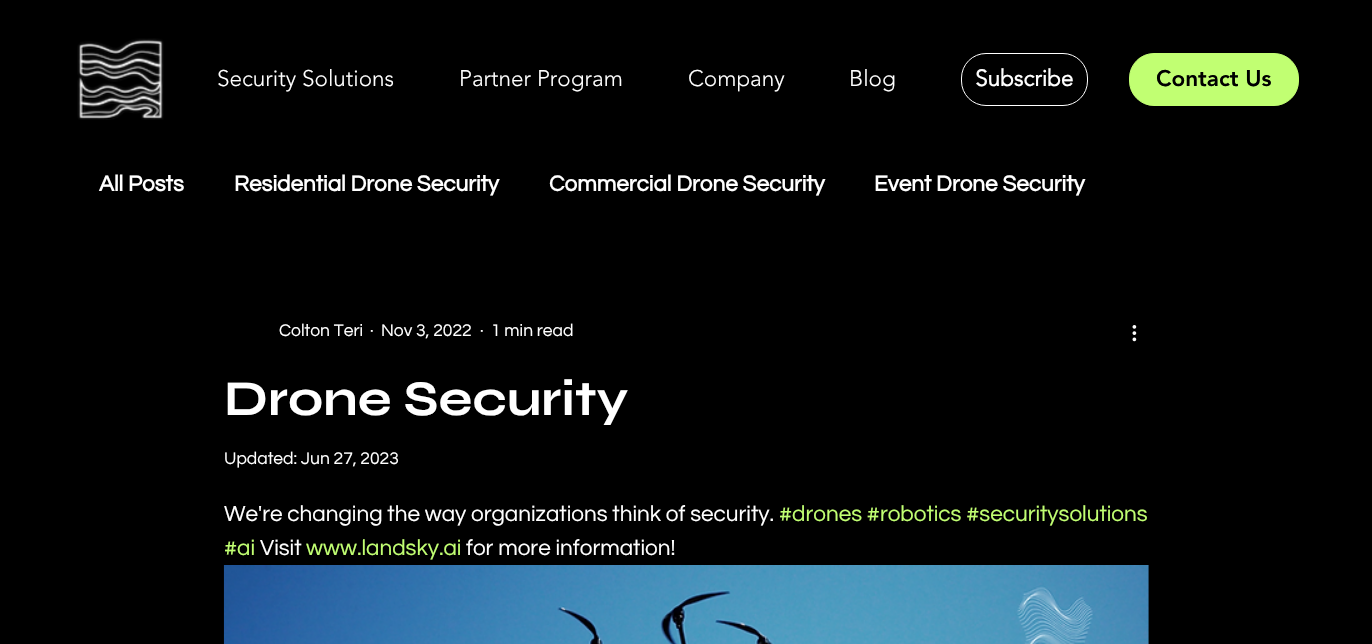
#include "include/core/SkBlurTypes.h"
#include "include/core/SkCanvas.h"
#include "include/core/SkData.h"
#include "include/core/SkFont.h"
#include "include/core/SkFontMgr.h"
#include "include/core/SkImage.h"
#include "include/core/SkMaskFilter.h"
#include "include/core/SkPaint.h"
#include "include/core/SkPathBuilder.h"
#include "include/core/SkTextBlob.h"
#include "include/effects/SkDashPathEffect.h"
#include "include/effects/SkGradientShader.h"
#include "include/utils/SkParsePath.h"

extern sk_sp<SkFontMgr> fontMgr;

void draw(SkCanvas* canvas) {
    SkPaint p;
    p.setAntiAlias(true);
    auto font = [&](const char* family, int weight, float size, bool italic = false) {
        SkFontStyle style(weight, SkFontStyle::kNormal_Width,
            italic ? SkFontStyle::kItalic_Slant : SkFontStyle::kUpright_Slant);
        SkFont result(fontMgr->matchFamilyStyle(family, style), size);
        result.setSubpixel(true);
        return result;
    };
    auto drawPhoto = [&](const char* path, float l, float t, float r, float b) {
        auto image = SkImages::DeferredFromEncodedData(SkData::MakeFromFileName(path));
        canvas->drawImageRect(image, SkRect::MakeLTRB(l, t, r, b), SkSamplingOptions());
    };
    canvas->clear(0xFF000000);
    drawPhoto("media/1.png", 77, 38, 164, 120);
    auto font1 = font("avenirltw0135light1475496", 300, 22.5f);
    p.setColor(0xFFFFFFFF);
    {
        const struct { const char* s; float x, y; } items[] = {
            {"Security Solutions", 217, 86},
            {"Partner Program", 459, 86},
            {"Company", 688, 86},
            {"Blog", 849, 86},
        };
        for (auto [s, x, y] : items) {
            canvas->drawString(s, x, y, font1, p);
        }
    }
    p.setStyle(SkPaint::kStroke_Style);
    p.setStrokeWidth(1);
    canvas->drawRoundRect(SkRect::MakeLTRB(961.5f, 53.5f, 1087.5f, 105.5f), 24.5f, 24.5f, p);
    auto font2 = font("avenirltw0135light1475496", 700, 22.5f);
    p.setStyle(SkPaint::kFill_Style);
    canvas->drawString("Subscribe", 975, 86, font2, p);
    p.setColor(0xFFC1FF72);
    canvas->drawRoundRect(SkRect::MakeLTRB(1129.5f, 53.5f, 1298.5f, 105.5f), 24.5f, 24.5f, p);
    p.setStyle(SkPaint::kStroke_Style);
    canvas->drawRoundRect(SkRect::MakeLTRB(1129.5f, 53.5f, 1298.5f, 105.5f), 24.5f, 24.5f, p);
    auto font3 = font("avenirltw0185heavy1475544", 900, 22.5f);
    p.setStyle(SkPaint::kFill_Style);
    p.setColor(0xFF000000);
    canvas->drawString("Contact Us", 1156, 86, font3, p);
    auto font4 = font("Questrial", 700, 22.5f);
    p.setColor(0xFFFFFFFF);
    {
        const struct { const char* s; float x, y; } items[] = {
            {"All Posts", 99, 191},
            {"Residential Drone Security", 234, 191},
            {"Commercial Drone Security", 549, 191},
            {"Event Drone Security", 874, 191},
        };
        for (auto [s, x, y] : items) {
            canvas->drawString(s, x, y, font4, p);
        }
    }
    auto font5 = font("Questrial", 400, 17.5f);
    {
        const struct { const char* s; float x, y; } items[] = {
            {"Colton Teri", 279, 336},
            {"·", 370, 336},
            {"Nov 3, 2022", 381, 336},
            {"·", 480, 336},
            {"1 min read", 491, 336},
        };
        for (auto [s, x, y] : items) {
            canvas->drawString(s, x, y, font5, p);
        }
    }
    drawPhoto("media/2.png", 1132, 325, 1137, 342);
    auto font6 = font("Syne", 700, 50);
    canvas->drawString("Drone Security", 224, 415, font6, p);
    canvas->drawString("Updated: Jun 27, 2023", 224, 464, font5, p);
    auto font7 = font("Questrial", 400, 22.5f);
    canvas->drawString("We're changing the way organizations think of security.", 224, 521, font7, p);
    p.setColor(0xFFC1FF72);
    canvas->drawString("#drones #robotics #securitysolutions", 779, 521, font7, p);
    canvas->drawString("#ai", 224, 555, font7, p);
    p.setColor(0xFFFFFFFF);
    canvas->drawString("Visit", 260, 555, font7, p);
    p.setColor(0xFFC1FF72);
    canvas->drawString("www.landsky.ai", 306, 555, font7, p);
    p.setColor(0xFFFFFFFF);
    canvas->drawString("for more information!", 466, 555, font7, p);
    drawPhoto("media/3.png", 223, 565, 1149, 644);
}
